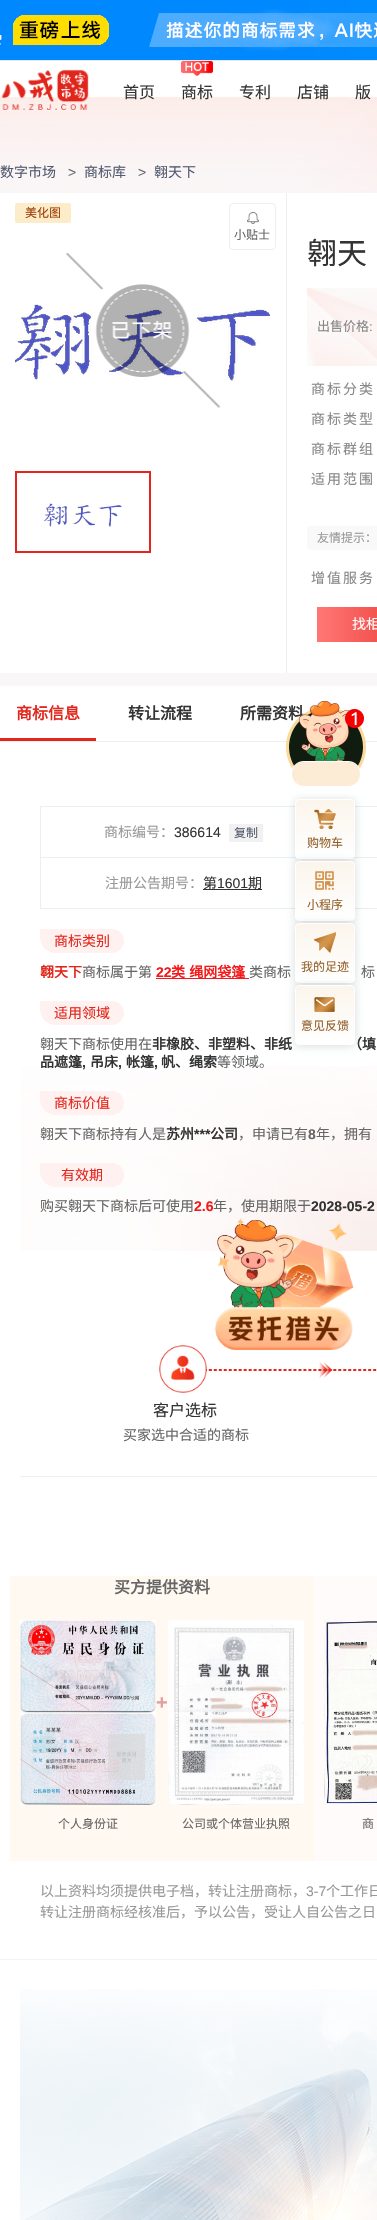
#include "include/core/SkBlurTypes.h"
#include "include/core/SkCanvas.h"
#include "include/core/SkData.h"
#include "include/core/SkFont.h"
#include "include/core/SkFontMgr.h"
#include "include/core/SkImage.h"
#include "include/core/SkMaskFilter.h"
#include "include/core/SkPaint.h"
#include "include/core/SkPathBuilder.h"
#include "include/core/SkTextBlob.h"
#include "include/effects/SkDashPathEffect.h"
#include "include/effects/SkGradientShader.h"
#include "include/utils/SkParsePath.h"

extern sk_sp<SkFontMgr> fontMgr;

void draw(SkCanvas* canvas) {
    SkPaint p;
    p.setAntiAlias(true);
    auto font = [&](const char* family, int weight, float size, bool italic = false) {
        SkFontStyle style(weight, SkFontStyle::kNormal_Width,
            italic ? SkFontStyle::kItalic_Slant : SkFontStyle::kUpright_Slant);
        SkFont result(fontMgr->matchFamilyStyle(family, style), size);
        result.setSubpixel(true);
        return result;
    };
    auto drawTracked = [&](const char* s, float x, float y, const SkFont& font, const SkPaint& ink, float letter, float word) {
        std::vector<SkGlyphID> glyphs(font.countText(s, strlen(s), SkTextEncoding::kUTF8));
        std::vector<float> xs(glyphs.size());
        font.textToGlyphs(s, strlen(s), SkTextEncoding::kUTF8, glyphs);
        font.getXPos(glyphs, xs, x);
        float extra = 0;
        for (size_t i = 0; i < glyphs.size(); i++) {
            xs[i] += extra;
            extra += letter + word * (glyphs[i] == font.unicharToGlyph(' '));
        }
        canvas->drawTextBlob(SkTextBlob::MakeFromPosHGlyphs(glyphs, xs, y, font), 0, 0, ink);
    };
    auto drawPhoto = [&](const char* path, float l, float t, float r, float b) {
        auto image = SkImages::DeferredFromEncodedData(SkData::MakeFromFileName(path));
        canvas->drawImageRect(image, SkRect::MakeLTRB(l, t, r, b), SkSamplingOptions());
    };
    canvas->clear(0xFFFFFFFF);
    p.setColor(0xFFFAF7F8);
    canvas->drawRect(SkRect::MakeLTRB(0, 98, 377, 686), p);
    drawPhoto("media/1.png", 0, 97, 377, 193);
    p.setColor(0xFFE7E7E7);
    canvas->drawRect(SkRect::MakeLTRB(0, 60, 377, 61), p);
    drawPhoto("media/2.png", 0, 0, 377, 60);
    drawPhoto("media/3.png", 1, 69, 89, 110);
    auto font1 = font("Noto Sans CJK SC", 400, 16);
    p.setColor(0xFF333333);
    canvas->drawString("首页", 123, 98, font1, p);
    drawPhoto("media/4.png", 181, 61, 213, 76);
    {
        const struct { const char* s; float x, y; } items[] = {
            {"商标", 181, 98},
            {"专利", 239, 98},
            {"店铺", 297, 98},
            {"版", 355, 98},
        };
        for (auto [s, x, y] : items) {
            canvas->drawString(s, x, y, font1, p);
        }
    }
    auto font2 = font("Noto Sans CJK SC", 400, 14);
    p.setColor(0xFF515A6E);
    canvas->drawString("数字市场", 0, 177, font2, p);
    auto font3 = font("Liberation Sans", 400, 14);
    p.setColor(0xFF666666);
    canvas->drawString(">", 68, 177, font3, p);
    p.setColor(0xFF515A6E);
    canvas->drawString("商标库", 84, 177, font2, p);
    p.setColor(0xFF666666);
    canvas->drawString(">", 138, 177, font3, p);
    p.setColor(0xFF515A6E);
    canvas->drawString("翱天下", 154, 177, font2, p);
    p.setColor(0xFFFFFFFF);
    canvas->drawRect(SkRect::MakeLTRB(0, 193, 286, 673), p);
    p.setColor(0xFFEAEEF5);
    canvas->drawRect(SkRect::MakeLTRB(286, 193, 287, 673), p);
    p.setColor(0xFFFDECCA);
    canvas->drawRoundRect(SkRect::MakeLTRB(15, 203, 71, 223), 2, 2, p);
    auto font4 = font("Noto Sans CJK SC", 400, 12);
    p.setColor(0xFF9E4007);
    canvas->drawString("美化图", 25, 217, font4, p);
    drawPhoto("media/5.png", 15, 304, 270, 381);
    p.setStyle(SkPaint::kStroke_Style);
    p.setStrokeWidth(2);
    p.setColor(0xFFE2261C);
    canvas->drawRect(SkRect::MakeLTRB(16, 472, 150, 552), p);
    drawPhoto("media/6.png", 44, 503, 122, 527);
    drawPhoto("media/7.png", 66, 253, 221, 408);
    p.setStrokeWidth(1);
    p.setColor(0xFFEEEEEE);
    canvas->drawRoundRect(SkRect::MakeLTRB(229.5f, 203.5f, 275.5f, 249.5f), 3.5f, 3.5f, p);
    drawPhoto("media/8.png", 247, 212, 259, 224);
    p.setStyle(SkPaint::kFill_Style);
    p.setColor(0xFF666666);
    canvas->drawString("小贴士", 234, 239, font4, p);
    p.setColor(0xFFFFFFFF);
    canvas->drawRect(SkRect::MakeLTRB(287, 193, 377, 673), p);
    auto font5 = font("Noto Sans CJK SC", 400, 30);
    p.setColor(0xFF333333);
    canvas->drawString("翱天", 307, 264, font5, p);
    drawPhoto("media/9.png", 307, 288, 377, 366);
    auto font6 = font("Noto Sans CJK SC", 400, 13);
    p.setColor(0xFF888888);
    canvas->drawString("出售价格", 317, 331, font6, p);
    auto font7 = font("Liberation Sans", 400, 13);
    canvas->drawString(":", 369, 331, font7, p);
    {
        const struct { const char* s; float x, y; } items[] = {
            {"商标分类", 311, 394},
            {"商标类型", 311, 424},
            {"商标群组", 311, 454},
            {"适用范围", 311, 484},
        };
        for (auto [s, x, y] : items) {
            drawTracked(s, x, y, font2, p, 2, 0);
        }
    }
    p.setColor(0xFFF9F9F9);
    canvas->drawRoundRect(SkRect::MakeLTRB(307, 526, 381, 550), 4, 4, p);
    p.setColor(0xFF999999);
    canvas->drawString("友情提示：", 317, 542, font4, p);
    p.setColor(0xFF888888);
    drawTracked("增值服务", 311, 583, font2, p, 2, 0);
    {
        const SkColor colors[] = {0xFFFF7775, 0xFFE2261C};
        const float stops[] = {0, 1};
        const SkPoint ends[] = {{317, 625}, {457, 625}};
        p.setShader(SkGradientShader::MakeLinear(ends, colors, stops, 2, SkTileMode::kClamp));
        p.setAlpha(255);
    }
    canvas->drawRect(SkRect::MakeLTRB(317, 607, 377, 642), p);
    p.setShader(nullptr);
    p.setColor(0xFFFFFFFF);
    canvas->drawString("找相", 352, 629, font2, p);
    p.setColor(0xFFEEEEEE);
    canvas->drawRect(SkRect::MakeLTRB(0, 741, 377, 742), p);
    auto font8 = font("Noto Sans CJK SC", 700, 16);
    p.setColor(0xFFE2261C);
    canvas->drawString("商标信息", 16, 719, font8, p);
    p.setColor(0xFF333333);
    canvas->drawString("转让流程", 128, 719, font8, p);
    canvas->drawString("所需资料", 240, 719, font8, p);
    {
        const struct { float l, t, r, b; SkColor color; } items[] = {
            {0, 738, 96, 741, 0xFFE2261C},
            {0, 1959, 377, 1960, 0xFFF1F5F9},
            {40, 806, 377, 807, 0xFFEAEEF5},
            {40, 806, 41, 909, 0xFFEAEEF5},
            {41, 857, 297, 858, 0xFFEAEEF5},
        };
        for (auto [l, t, r, b, color] : items) {
            p.setColor(color);
            canvas->drawRect(SkRect::MakeLTRB(l, t, r, b), p);
        }
    }
    p.setColor(0xFF999999);
    canvas->drawString("商标编号：", 104, 837, font2, p);
    p.setColor(0xFF333333);
    canvas->drawString("386614", 174, 837, font3, p);
    p.setColor(0xFFF1F1F1);
    canvas->drawRect(SkRect::MakeLTRB(229, 824, 263, 842), p);
    p.setColor(0xFF515A6E);
    canvas->drawString("复制", 234, 837, font4, p);
    p.setColor(0xFFEAEEF5);
    canvas->drawRect(SkRect::MakeLTRB(353, 857, 377, 858), p);
    canvas->drawRect(SkRect::MakeLTRB(41, 908, 295, 909), p);
    p.setColor(0xFF999999);
    canvas->drawString("注册公告期号：", 105, 888, font2, p);
    p.setColor(0xFF333333);
    canvas->drawRect(SkRect::MakeLTRB(203, 889, 262, 890), p);
    canvas->drawString("第", 203, 888, font2, p);
    canvas->drawString("1601", 217, 888, font3, p);
    canvas->drawString("期", 248, 888, font2, p);
    p.setColor(0xFFEAEEF5);
    canvas->drawRect(SkRect::MakeLTRB(355, 908, 377, 909), p);
    drawPhoto("media/10.png", 21, 1066, 377, 1251);
    p.setColor(0xFFFFF1F0);
    canvas->drawPath(SkPathBuilder().moveTo(40, 929).lineTo(112, 929).cubicTo(118.5f, 929, 124, 934.5f, 124, 941).cubicTo(124, 947.5f, 118.5f, 953, 112, 953).lineTo(56, 953).cubicTo(47, 953, 40, 946, 40, 937).close().detach(), p);
    p.setColor(0xFFE2261C);
    canvas->drawString("商标类别", 54, 946, font2, p);
    auto font9 = font("Noto Sans CJK SC", 700, 14);
    canvas->drawString("翱天下", 40, 977, font9, p);
    p.setColor(0xFF666666);
    canvas->drawString("商标属于第", 82, 977, font2, p);
    auto font10 = font("Liberation Sans", 700, 14);
    p.setColor(0xFFF41A1A);
    canvas->drawString("22", 156, 977, font10, p);
    canvas->drawRect(SkRect::MakeLTRB(156, 978, 249, 979), p);
    drawTracked("类 绳网袋篷", 171, 977, font9, p, 0, 1);
    p.setColor(0xFF666666);
    canvas->drawString("类商标", 249, 977, font2, p);
    canvas->drawString("标", 361, 977, font2, p);
    p.setColor(0xFFFFF1F0);
    canvas->drawPath(SkPathBuilder().moveTo(40, 1001).lineTo(112, 1001).cubicTo(118.5f, 1001, 124, 1006.5f, 124, 1013).cubicTo(124, 1019.5f, 118.5f, 1025, 112, 1025).lineTo(56, 1025).cubicTo(47, 1025, 40, 1018, 40, 1009).close().detach(), p);
    p.setColor(0xFFE2261C);
    canvas->drawString("适用领域", 54, 1018, font2, p);
    p.setColor(0xFF666666);
    canvas->drawString("翱天下商标使用在", 40, 1049, font2, p);
    p.setColor(0xFF333333);
    {
        const struct { const char* s; float x, y; } items[] = {
            {"非橡胶、非塑料、非纸", 152, 1049},
            {"（填", 348, 1049},
            {"品遮篷", 40, 1067},
        };
        for (auto [s, x, y] : items) {
            canvas->drawString(s, x, y, font9, p);
        }
    }
    canvas->drawString(",", 82, 1067, font10, p);
    canvas->drawString("吊床", 90, 1067, font9, p);
    canvas->drawString(",", 118, 1067, font10, p);
    canvas->drawString("帐篷", 126, 1067, font9, p);
    canvas->drawString(",", 154, 1067, font10, p);
    canvas->drawString("帆、绳索", 161, 1067, font9, p);
    p.setColor(0xFF666666);
    canvas->drawString("等领域。", 217, 1067, font2, p);
    p.setColor(0xFFFFF1F0);
    canvas->drawPath(SkPathBuilder().moveTo(40, 1091).lineTo(112, 1091).cubicTo(118.5f, 1091, 124, 1096.5f, 124, 1103).cubicTo(124, 1109.5f, 118.5f, 1115, 112, 1115).lineTo(56, 1115).cubicTo(47, 1115, 40, 1108, 40, 1099).close().detach(), p);
    p.setColor(0xFFE2261C);
    canvas->drawString("商标价值", 54, 1108, font2, p);
    p.setColor(0xFF666666);
    canvas->drawString("翱天下商标持有人是", 40, 1139, font2, p);
    p.setColor(0xFF333333);
    canvas->drawString("苏州", 166, 1139, font9, p);
    canvas->drawString("***", 194, 1139, font10, p);
    canvas->drawString("公司", 210, 1139, font9, p);
    p.setColor(0xFF666666);
    canvas->drawString("，申请已有", 238, 1139, font2, p);
    canvas->drawString("8", 308, 1139, font10, p);
    canvas->drawString("年，拥有", 316, 1139, font2, p);
    p.setColor(0xFFFFF1F0);
    canvas->drawPath(SkPathBuilder().moveTo(40, 1163).lineTo(112, 1163).cubicTo(118.5f, 1163, 124, 1168.5f, 124, 1175).cubicTo(124, 1181.5f, 118.5f, 1187, 112, 1187).lineTo(56, 1187).cubicTo(47, 1187, 40, 1180, 40, 1171).close().detach(), p);
    p.setColor(0xFFE2261C);
    canvas->drawString("有效期", 61, 1180, font2, p);
    p.setColor(0xFF666666);
    canvas->drawString("购买翱天下商标后可使用", 40, 1211, font2, p);
    p.setColor(0xFFF41A1A);
    canvas->drawString("2.6", 194, 1211, font10, p);
    p.setColor(0xFF666666);
    canvas->drawString("年，使用期限于", 213, 1211, font2, p);
    p.setColor(0xFF333333);
    canvas->drawString("2028-05-2", 311, 1211, font10, p);
    p.setColor(0xFFEAEEF5);
    canvas->drawRect(SkRect::MakeLTRB(20, 1476, 377, 1477), p);
    drawPhoto("media/11.png", 319, 1362, 333, 1378);
    p.setStyle(SkPaint::kStroke_Style);
    p.setColor(0xFFE2271C);
    p.setPathEffect(SkDashPathEffect::Make({{3, 1.98f}}, 0));
    canvas->drawPath(SkPathBuilder().moveTo(164, 1369.5f).lineTo(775, 1369.5f).detach(), p);
    p.setPathEffect(nullptr);
    p.setPathEffect(SkDashPathEffect::Make({{3, 1.98f}}, 0));
    canvas->drawPath(SkPathBuilder().moveTo(164, 1370.5f).lineTo(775, 1370.5f).detach(), p);
    p.setPathEffect(nullptr);
    drawPhoto("media/12.png", 159, 1345, 207, 1393);
    p.setStyle(SkPaint::kFill_Style);
    p.setColor(0xFF333333);
    canvas->drawString("客户选标", 153, 1416, font1, p);
    p.setColor(0xFF666666);
    canvas->drawString("买家选中合适的商标", 123, 1440, font2, p);
    p.setColor(0xFFFFF9F2);
    canvas->drawRect(SkRect::MakeLTRB(10, 1576, 314, 1861), p);
    p.setColor(0xFF666666);
    canvas->drawString("买方提供资料", 114, 1593, font8, p);
    auto font11 = font("Liberation Sans", 700, 20);
    p.setColor(0xFFDF9F9F);
    canvas->drawString("+", 156, 1709, font11, p);
    drawPhoto("media/13.png", 20, 1620, 156, 1805);
    p.setColor(0xFF666666);
    canvas->drawString("个人身份证", 58, 1828, font4, p);
    drawPhoto("media/14.png", 168, 1620, 304, 1805);
    canvas->drawString("公司或个体营业执照", 182, 1828, font4, p);
    p.setColor(0xFFFFFBFB);
    canvas->drawRect(SkRect::MakeLTRB(314, 1576, 377, 1861), p);
    drawPhoto("media/15.png", 324, 1620, 377, 1805);
    p.setColor(0xFF666666);
    canvas->drawString("商", 362, 1828, font4, p);
    p.setColor(0xFF999999);
    canvas->drawString("以上资料均须提供电子档，转让注册商标，", 40, 1896, font2, p);
    canvas->drawString("3-7", 306, 1896, font3, p);
    canvas->drawString("个工作日", 326, 1896, font2, p);
    canvas->drawString("转让注册商标经核准后，予以公告，受让人自公告之日", 40, 1917, font2, p);
    drawPhoto("media/16.png", 20, 1989, 377, 2220);
    drawPhoto("media/17.png", 286, 701, 366, 786);
    p.setColor(0x26000915);
    p.setMaskFilter(SkMaskFilter::MakeBlur(kNormal_SkBlurStyle, 5));
    canvas->drawRoundRect(SkRect::MakeLTRB(295, 800, 355, 860), 4, 4, p);
    p.setMaskFilter(nullptr);
    canvas->save();
    canvas->clipPath(SkPathBuilder().moveTo(299, 799).lineTo(351, 799).cubicTo(353, 799, 355, 801, 355, 803).lineTo(355, 855).cubicTo(355, 857, 353, 859, 351, 859).lineTo(299, 859).cubicTo(297, 859, 295, 857, 295, 855).lineTo(295, 803).cubicTo(295, 801, 297, 799, 299, 799).close().detach(), true);
    {
        const SkColor colors[] = {0xFFFFFFFF, 0xFFFBF5EC};
        const float stops[] = {0, 1};
        const SkPoint ends[] = {{325, 858}, {325, 800}};
        p.setShader(SkGradientShader::MakeLinear(ends, colors, stops, 2, SkTileMode::kClamp));
        p.setAlpha(255);
    }
    canvas->drawRect(SkRect::MakeLTRB(295, 800, 355, 858), p);
    canvas->restore();
    p.setStyle(SkPaint::kStroke_Style);
    p.setShader(nullptr);
    p.setColor(0xFFFFFFFF);
    canvas->drawRoundRect(SkRect::MakeLTRB(295.5f, 799.5f, 354.5f, 858.5f), 3.5f, 3.5f, p);
    drawPhoto("media/18.png", 314, 809, 336, 829);
    p.setStyle(SkPaint::kFill_Style);
    p.setColor(0x26000915);
    p.setMaskFilter(SkMaskFilter::MakeBlur(kNormal_SkBlurStyle, 5));
    canvas->drawRoundRect(SkRect::MakeLTRB(295, 862, 355, 922), 4, 4, p);
    p.setMaskFilter(nullptr);
    p.setColor(0xFF93612B);
    canvas->drawString("购物车", 307, 847, font4, p);
    canvas->save();
    canvas->clipPath(SkPathBuilder().moveTo(299, 861).lineTo(351, 861).cubicTo(353, 861, 355, 863, 355, 865).lineTo(355, 917).cubicTo(355, 919, 353, 921, 351, 921).lineTo(299, 921).cubicTo(297, 921, 295, 919, 295, 917).lineTo(295, 865).cubicTo(295, 863, 297, 861, 299, 861).close().detach(), true);
    {
        const SkColor colors[] = {0xFFFFFFFF, 0xFFFBF5EC};
        const float stops[] = {0, 1};
        const SkPoint ends[] = {{325, 920}, {325, 862}};
        p.setShader(SkGradientShader::MakeLinear(ends, colors, stops, 2, SkTileMode::kClamp));
        p.setAlpha(255);
    }
    canvas->drawRect(SkRect::MakeLTRB(295, 862, 355, 920), p);
    canvas->restore();
    p.setStyle(SkPaint::kStroke_Style);
    p.setShader(nullptr);
    p.setColor(0xFFFFFFFF);
    canvas->drawRoundRect(SkRect::MakeLTRB(295.5f, 861.5f, 354.5f, 920.5f), 3.5f, 3.5f, p);
    drawPhoto("media/19.png", 315, 871, 334, 890);
    p.setStyle(SkPaint::kFill_Style);
    p.setColor(0x26000915);
    p.setMaskFilter(SkMaskFilter::MakeBlur(kNormal_SkBlurStyle, 5));
    canvas->drawRoundRect(SkRect::MakeLTRB(295, 924, 355, 984), 4, 4, p);
    p.setMaskFilter(nullptr);
    p.setColor(0xFF93612B);
    canvas->drawString("小程序", 307, 909, font4, p);
    canvas->save();
    canvas->clipPath(SkPathBuilder().moveTo(299, 923).lineTo(351, 923).cubicTo(353, 923, 355, 925, 355, 927).lineTo(355, 979).cubicTo(355, 981, 353, 983, 351, 983).lineTo(299, 983).cubicTo(297, 983, 295, 981, 295, 979).lineTo(295, 927).cubicTo(295, 925, 297, 923, 299, 923).close().detach(), true);
    {
        const SkColor colors[] = {0xFFFFFFFF, 0xFFFBF5EC};
        const float stops[] = {0, 1};
        const SkPoint ends[] = {{325, 982}, {325, 924}};
        p.setShader(SkGradientShader::MakeLinear(ends, colors, stops, 2, SkTileMode::kClamp));
        p.setAlpha(255);
    }
    canvas->drawRect(SkRect::MakeLTRB(295, 924, 355, 982), p);
    canvas->restore();
    p.setStyle(SkPaint::kStroke_Style);
    p.setShader(nullptr);
    p.setColor(0xFFFFFFFF);
    canvas->drawRoundRect(SkRect::MakeLTRB(295.5f, 923.5f, 354.5f, 982.5f), 3.5f, 3.5f, p);
    drawPhoto("media/20.png", 314, 932, 336, 953);
    p.setStyle(SkPaint::kFill_Style);
    p.setColor(0x26000915);
    p.setMaskFilter(SkMaskFilter::MakeBlur(kNormal_SkBlurStyle, 5));
    canvas->drawRoundRect(SkRect::MakeLTRB(295, 986, 355, 1046), 4, 4, p);
    p.setMaskFilter(nullptr);
    p.setColor(0xFF93612B);
    canvas->drawString("我的足迹", 301, 971, font4, p);
    canvas->save();
    canvas->clipPath(SkPathBuilder().moveTo(299, 985).lineTo(351, 985).cubicTo(353, 985, 355, 987, 355, 989).lineTo(355, 1041).cubicTo(355, 1043, 353, 1045, 351, 1045).lineTo(299, 1045).cubicTo(297, 1045, 295, 1043, 295, 1041).lineTo(295, 989).cubicTo(295, 987, 297, 985, 299, 985).close().detach(), true);
    {
        const SkColor colors[] = {0xFFFFFFFF, 0xFFFBF5EC};
        const float stops[] = {0, 1};
        const SkPoint ends[] = {{325, 1044}, {325, 986}};
        p.setShader(SkGradientShader::MakeLinear(ends, colors, stops, 2, SkTileMode::kClamp));
        p.setAlpha(255);
    }
    canvas->drawRect(SkRect::MakeLTRB(295, 986, 355, 1044), p);
    canvas->restore();
    p.setStyle(SkPaint::kStroke_Style);
    p.setShader(nullptr);
    p.setColor(0xFFFFFFFF);
    canvas->drawRoundRect(SkRect::MakeLTRB(295.5f, 985.5f, 354.5f, 1044.5f), 3.5f, 3.5f, p);
    drawPhoto("media/21.png", 314, 997, 335, 1012);
    p.setStyle(SkPaint::kFill_Style);
    p.setColor(0xFF93612B);
    canvas->drawString("意见反馈", 301, 1030, font4, p);
    drawPhoto("media/22.png", 215, 1218, 354, 1350);
}
